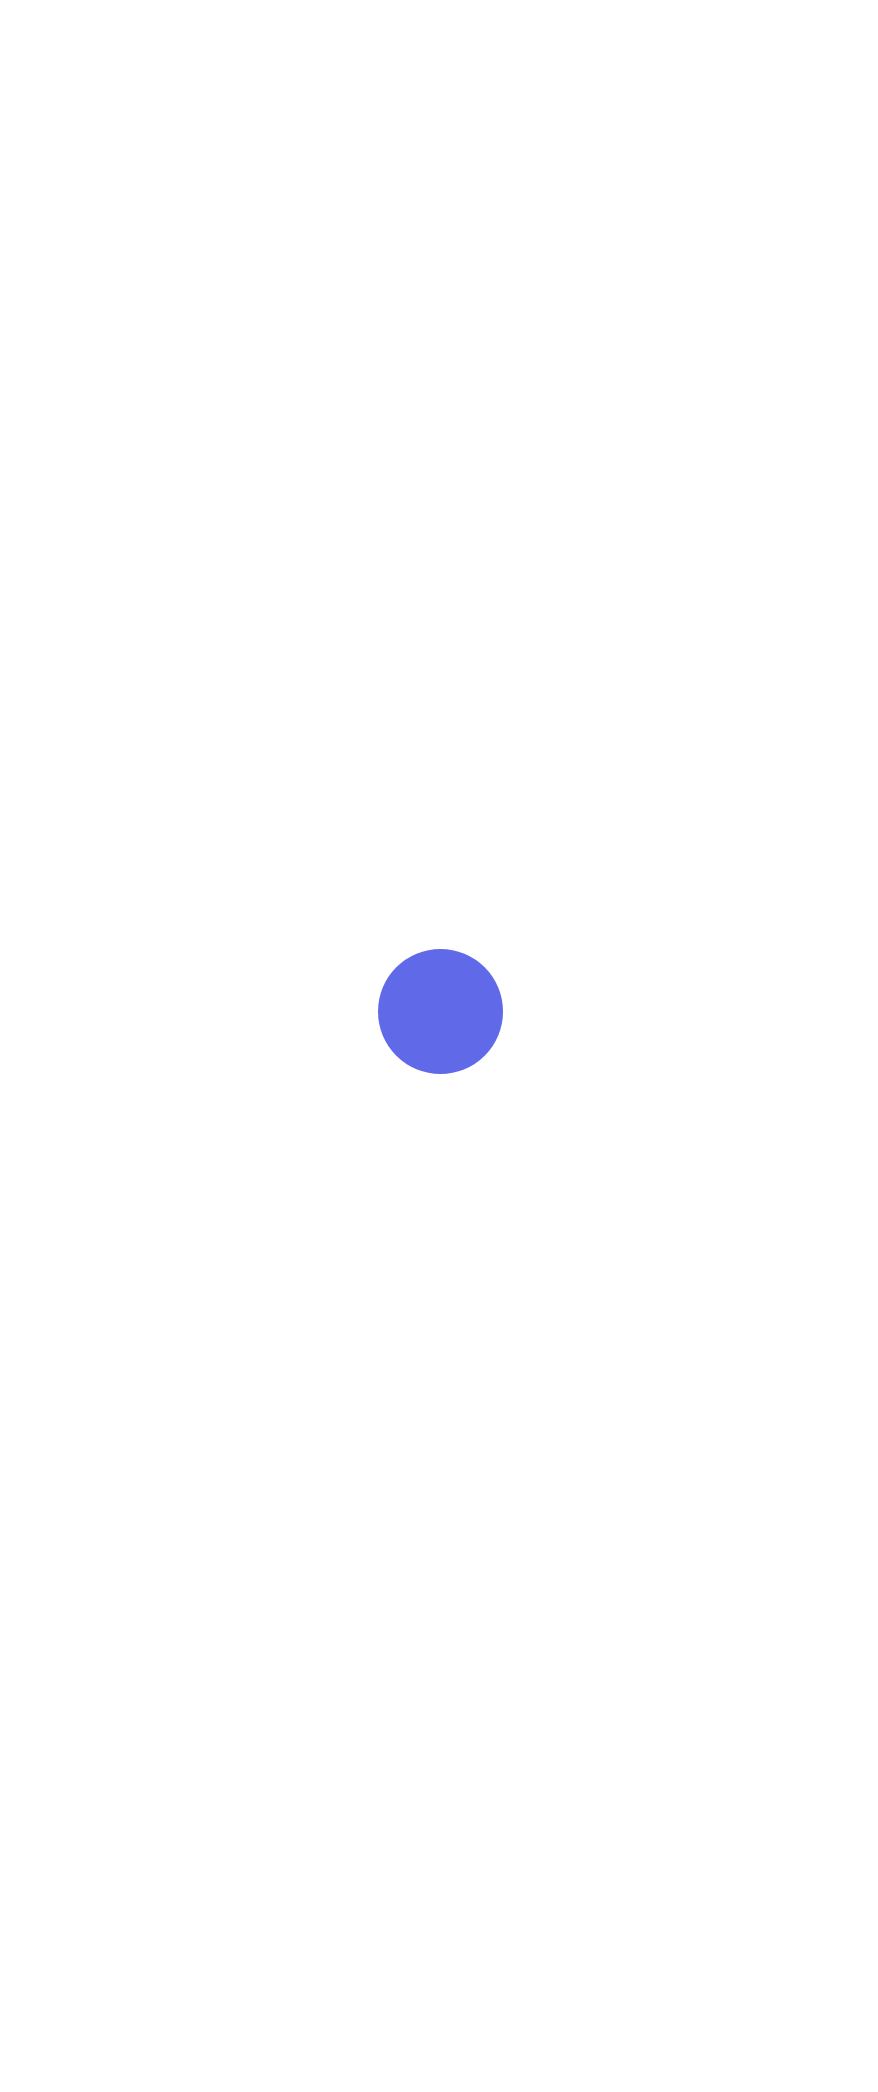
#include "include/core/SkBlurTypes.h"
#include "include/core/SkCanvas.h"
#include "include/core/SkData.h"
#include "include/core/SkFont.h"
#include "include/core/SkFontMgr.h"
#include "include/core/SkImage.h"
#include "include/core/SkMaskFilter.h"
#include "include/core/SkPaint.h"
#include "include/core/SkPathBuilder.h"
#include "include/core/SkTextBlob.h"
#include "include/effects/SkDashPathEffect.h"
#include "include/effects/SkGradientShader.h"
#include "include/utils/SkParsePath.h"

extern sk_sp<SkFontMgr> fontMgr;

void draw(SkCanvas* canvas) {
    SkPaint p;
    p.setAntiAlias(true);
    canvas->clear(0xFFFFFFFF);
    p.setColor(0xFF6069E8);
    canvas->drawCircle(440.5f, 1011.5f, 62.5f, p);
}
